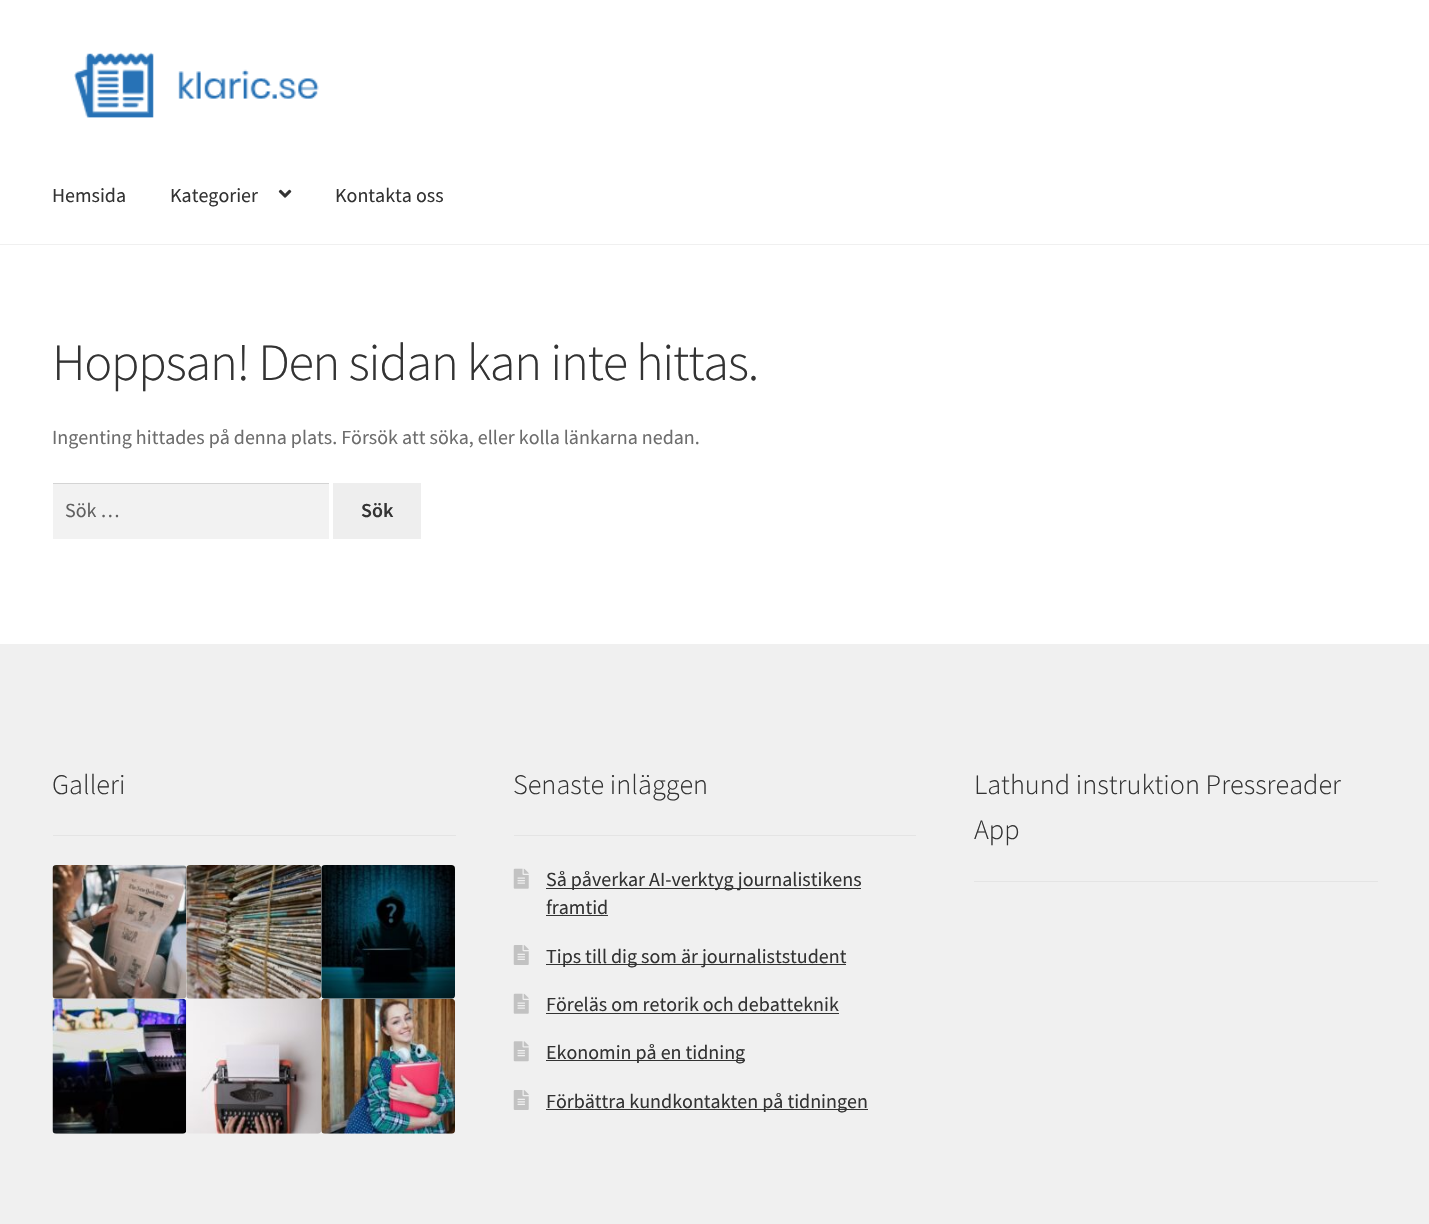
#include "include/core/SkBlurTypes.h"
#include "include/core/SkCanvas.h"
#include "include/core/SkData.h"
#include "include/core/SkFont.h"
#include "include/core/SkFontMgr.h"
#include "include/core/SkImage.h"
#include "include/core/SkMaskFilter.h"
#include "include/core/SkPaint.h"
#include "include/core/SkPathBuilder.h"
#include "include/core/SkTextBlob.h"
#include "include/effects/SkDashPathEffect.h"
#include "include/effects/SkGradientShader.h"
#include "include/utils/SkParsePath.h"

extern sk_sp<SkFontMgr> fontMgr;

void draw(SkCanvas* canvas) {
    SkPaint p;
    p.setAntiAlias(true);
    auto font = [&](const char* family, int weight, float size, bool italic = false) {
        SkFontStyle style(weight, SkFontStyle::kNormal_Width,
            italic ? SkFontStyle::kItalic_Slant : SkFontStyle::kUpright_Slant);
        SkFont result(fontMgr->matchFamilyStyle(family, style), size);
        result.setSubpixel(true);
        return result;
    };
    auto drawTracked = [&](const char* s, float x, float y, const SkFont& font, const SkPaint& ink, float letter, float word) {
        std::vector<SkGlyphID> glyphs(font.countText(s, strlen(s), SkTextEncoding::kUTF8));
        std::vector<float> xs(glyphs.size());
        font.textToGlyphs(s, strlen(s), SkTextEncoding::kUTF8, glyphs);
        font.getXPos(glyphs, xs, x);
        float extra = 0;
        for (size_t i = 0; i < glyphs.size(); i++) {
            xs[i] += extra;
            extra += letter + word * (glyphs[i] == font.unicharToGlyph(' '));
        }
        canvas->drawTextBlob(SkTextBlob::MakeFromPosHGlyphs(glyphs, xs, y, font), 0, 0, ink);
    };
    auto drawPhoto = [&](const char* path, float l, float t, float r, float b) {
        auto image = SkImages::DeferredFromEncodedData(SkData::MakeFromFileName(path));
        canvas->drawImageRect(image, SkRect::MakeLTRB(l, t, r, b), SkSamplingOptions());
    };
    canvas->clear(0xFFFFFFFF);
    p.setColor(0xFFF0F0F0);
    canvas->drawRect(SkRect::MakeLTRB(0, 244, 1429, 245), p);
    drawPhoto("media/1.png", 74, 52, 319, 118);
    auto font1 = font("Source Sans Pro", 400, 20);
    p.setColor(0xFF333333);
    canvas->drawString("Hemsida", 52, 202, font1, p);
    canvas->drawString("Kategorier", 170, 202, font1, p);
    drawPhoto("media/2.png", 278, 189, 292, 198);
    canvas->drawString("Kontakta oss", 335, 202, font1, p);
    auto font2 = font("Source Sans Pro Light", 300, 52.4f);
    drawTracked("Hoppsan! Den sidan kan inte hittas.", 52, 380, font2, p, -1.25f, 0);
    p.setColor(0xFF6D6D6D);
    canvas->drawString("Ingenting hittades på denna plats. Försök att söka, eller kolla länkarna nedan.", 52, 444, font1, p);
    p.setColor(0xFFF2F2F2);
    canvas->drawRect(SkRect::MakeLTRB(53, 484, 329, 539), p);
    p.setColor(0xFFD4D4D4);
    canvas->drawRect(SkRect::MakeLTRB(53, 483, 329, 484), p);
    p.setColor(0xFF616161);
    canvas->drawString("Sök …", 65, 517, font1, p);
    p.setColor(0xFFEEEEEE);
    canvas->drawRect(SkRect::MakeLTRB(333, 483, 421, 539), p);
    auto font3 = font("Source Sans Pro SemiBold", 600, 20);
    p.setColor(0xFF333333);
    canvas->drawString("Sök", 361, 517, font3, p);
    p.setColor(0xFFF0F0F0);
    canvas->drawRect(SkRect::MakeLTRB(0, 644, 1429, 1224), p);
    p.setColor(0xFFE4E4E4);
    canvas->drawRect(SkRect::MakeLTRB(53, 835, 456, 836), p);
    auto font4 = font("Source Sans Pro Light", 300, 28.25f);
    p.setColor(0xFF333333);
    canvas->drawString("Galleri", 52, 794, font4, p);
    drawPhoto("media/3.png", 52, 865, 187, 999);
    drawPhoto("media/4.png", 186, 865, 322, 999);
    drawPhoto("media/5.png", 321, 865, 455, 999);
    drawPhoto("media/6.png", 52, 998, 187, 1134);
    drawPhoto("media/7.png", 186, 998, 321, 1134);
    drawPhoto("media/8.png", 321, 998, 455, 1134);
    p.setColor(0xFFE4E4E4);
    canvas->drawRect(SkRect::MakeLTRB(514, 835, 916, 836), p);
    p.setColor(0xFF333333);
    canvas->drawString("Senaste inläggen", 513, 794, font4, p);
    drawPhoto("media/9.png", 513, 868, 529, 889);
    canvas->drawRect(SkRect::MakeLTRB(546, 888, 861, 889), p);
    canvas->drawString("Så påverkar AI-verktyg journalistikens", 546, 886, font1, p);
    canvas->drawString("framtid", 546, 914, font1, p);
    canvas->drawRect(SkRect::MakeLTRB(546, 915, 608, 916), p);
    drawPhoto("media/10.png", 513, 945, 529, 965);
    canvas->drawRect(SkRect::MakeLTRB(546, 964, 846, 965), p);
    canvas->drawString("Tips till dig som är journaliststudent", 546, 963, font1, p);
    drawPhoto("media/9.png", 513, 993, 529, 1014);
    canvas->drawString("Föreläs om retorik och debatteknik", 546, 1011, font1, p);
    canvas->drawRect(SkRect::MakeLTRB(546, 1013, 839, 1014), p);
    drawPhoto("media/11.png", 513, 1041, 529, 1062);
    canvas->drawRect(SkRect::MakeLTRB(546, 1060, 745, 1061), p);
    canvas->drawString("Ekonomin på en tidning", 546, 1059, font1, p);
    drawPhoto("media/10.png", 513, 1090, 529, 1110);
    canvas->drawRect(SkRect::MakeLTRB(546, 1109, 868, 1110), p);
    canvas->drawString("Förbättra kundkontakten på tidningen", 546, 1108, font1, p);
    p.setColor(0xFFE4E4E4);
    canvas->drawRect(SkRect::MakeLTRB(974, 881, 1378, 882), p);
    p.setColor(0xFF333333);
    canvas->drawString("Lathund instruktion Pressreader", 974, 794, font4, p);
    canvas->drawString("App", 974, 839, font4, p);
}
